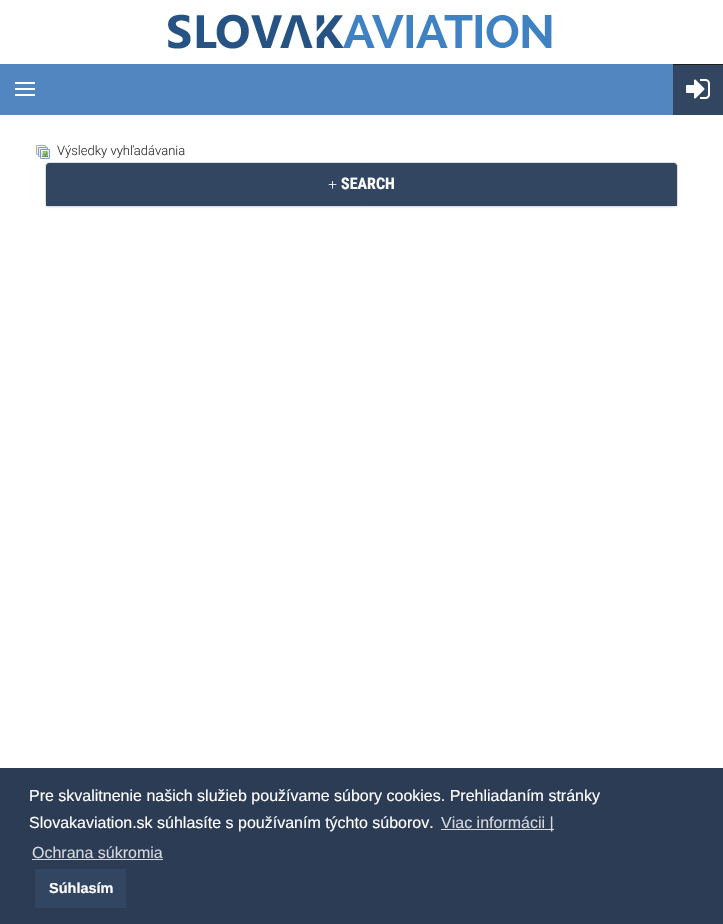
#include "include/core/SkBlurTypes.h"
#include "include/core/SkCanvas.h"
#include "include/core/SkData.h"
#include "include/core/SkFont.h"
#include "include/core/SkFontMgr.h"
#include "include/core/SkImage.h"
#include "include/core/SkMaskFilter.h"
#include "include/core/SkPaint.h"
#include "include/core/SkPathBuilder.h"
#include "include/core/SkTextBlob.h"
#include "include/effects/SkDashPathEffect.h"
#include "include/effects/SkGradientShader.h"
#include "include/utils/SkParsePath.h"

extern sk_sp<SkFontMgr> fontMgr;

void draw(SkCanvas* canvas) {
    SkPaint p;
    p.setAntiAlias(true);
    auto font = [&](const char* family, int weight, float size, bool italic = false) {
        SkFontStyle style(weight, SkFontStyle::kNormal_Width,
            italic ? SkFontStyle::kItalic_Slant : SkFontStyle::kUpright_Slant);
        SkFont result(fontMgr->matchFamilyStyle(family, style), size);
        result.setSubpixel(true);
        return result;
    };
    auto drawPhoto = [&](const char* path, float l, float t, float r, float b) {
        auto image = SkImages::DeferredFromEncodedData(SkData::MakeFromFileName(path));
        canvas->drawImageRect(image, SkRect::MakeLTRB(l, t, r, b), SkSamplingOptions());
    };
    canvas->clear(0xFFFFFFFF);
    drawPhoto("media/1.png", 168, 14, 552, 49);
    {
        const struct { float l, t, r, b; SkColor color; } items[] = {
            {0, 64, 673, 115, 0xFF5286C1},
            {15, 82, 35, 84, 0xFFFFFFFF},
            {15, 88, 35, 90, 0xFFFFFFFF},
            {15, 94, 35, 96, 0xFFFFFFFF},
            {673, 64, 723, 65, 0xFF1F1F1F},
            {673, 65, 723, 115, 0xFF324661},
        };
        for (auto [l, t, r, b, color] : items) {
            p.setColor(color);
            canvas->drawRect(SkRect::MakeLTRB(l, t, r, b), p);
        }
    }
    drawPhoto("media/2.png", 686, 79, 710, 99);
    drawPhoto("media/3.png", 36, 145, 50, 159);
    auto font1 = font("Roboto", 300, 13);
    p.setColor(0xFF313131);
    canvas->drawString("Výsledky vyhľadávania", 57, 155, font1, p);
    p.setColor(0x0D000000);
    p.setMaskFilter(SkMaskFilter::MakeBlur(kNormal_SkBlurStyle, 0.5f));
    canvas->drawRoundRect(SkRect::MakeLTRB(45, 163, 678, 208), 4, 4, p);
    p.setMaskFilter(nullptr);
    p.setStyle(SkPaint::kStroke_Style);
    p.setStrokeWidth(1);
    p.setColor(0xFFDDDDDD);
    canvas->drawRoundRect(SkRect::MakeLTRB(45.5f, 162.5f, 677.5f, 206.5f), 3.5f, 3.5f, p);
    p.setStyle(SkPaint::kFill_Style);
    p.setColor(0xFF324661);
    canvas->drawPath(SkPathBuilder().moveTo(49, 163).lineTo(674, 163).cubicTo(675.5f, 163, 677, 164.5f, 677, 166).lineTo(677, 206).lineTo(46, 206).lineTo(46, 166).cubicTo(46, 164.5f, 47.5f, 163, 49, 163).close().detach(), p);
    auto font2 = font("Liberation Serif", 400, 16);
    p.setColor(0xFFFFFFFF);
    canvas->drawString("+", 328, 190, font2, p);
    auto font3 = font("Roboto Condensed", 700, 16);
    canvas->drawString("SEARCH", 341, 189, font3, p);
    p.setColor(0xFF2C3C55);
    canvas->drawRect(SkRect::MakeLTRB(0, 768, 723, 924), p);
    auto font4 = font("Liberation Sans", 400, 16);
    p.setColor(0xFFFFFFFF);
    canvas->drawString("Pre skvalitnenie našich služieb používame súbory cookies. Prehliadaním stránky", 29, 801, font4, p);
    canvas->drawString("Slovakaviation.sk súhlasíte s používaním týchto súborov.", 29, 828, font4, p);
    p.setColor(0xFFD5D8DD);
    canvas->drawRect(SkRect::MakeLTRB(441, 829, 554, 830), p);
    canvas->drawString("Viac informácii |", 441, 828, font4, p);
    canvas->drawString("Ochrana súkromia", 32, 858, font4, p);
    canvas->drawRect(SkRect::MakeLTRB(32, 859, 163, 860), p);
    p.setColor(0xFF324661);
    canvas->drawRect(SkRect::MakeLTRB(35, 869, 126, 908), p);
    auto font5 = font("Liberation Sans", 700, 14.5f);
    p.setColor(0xFFFFFFFF);
    canvas->drawString("Súhlasím", 49, 893, font5, p);
}
